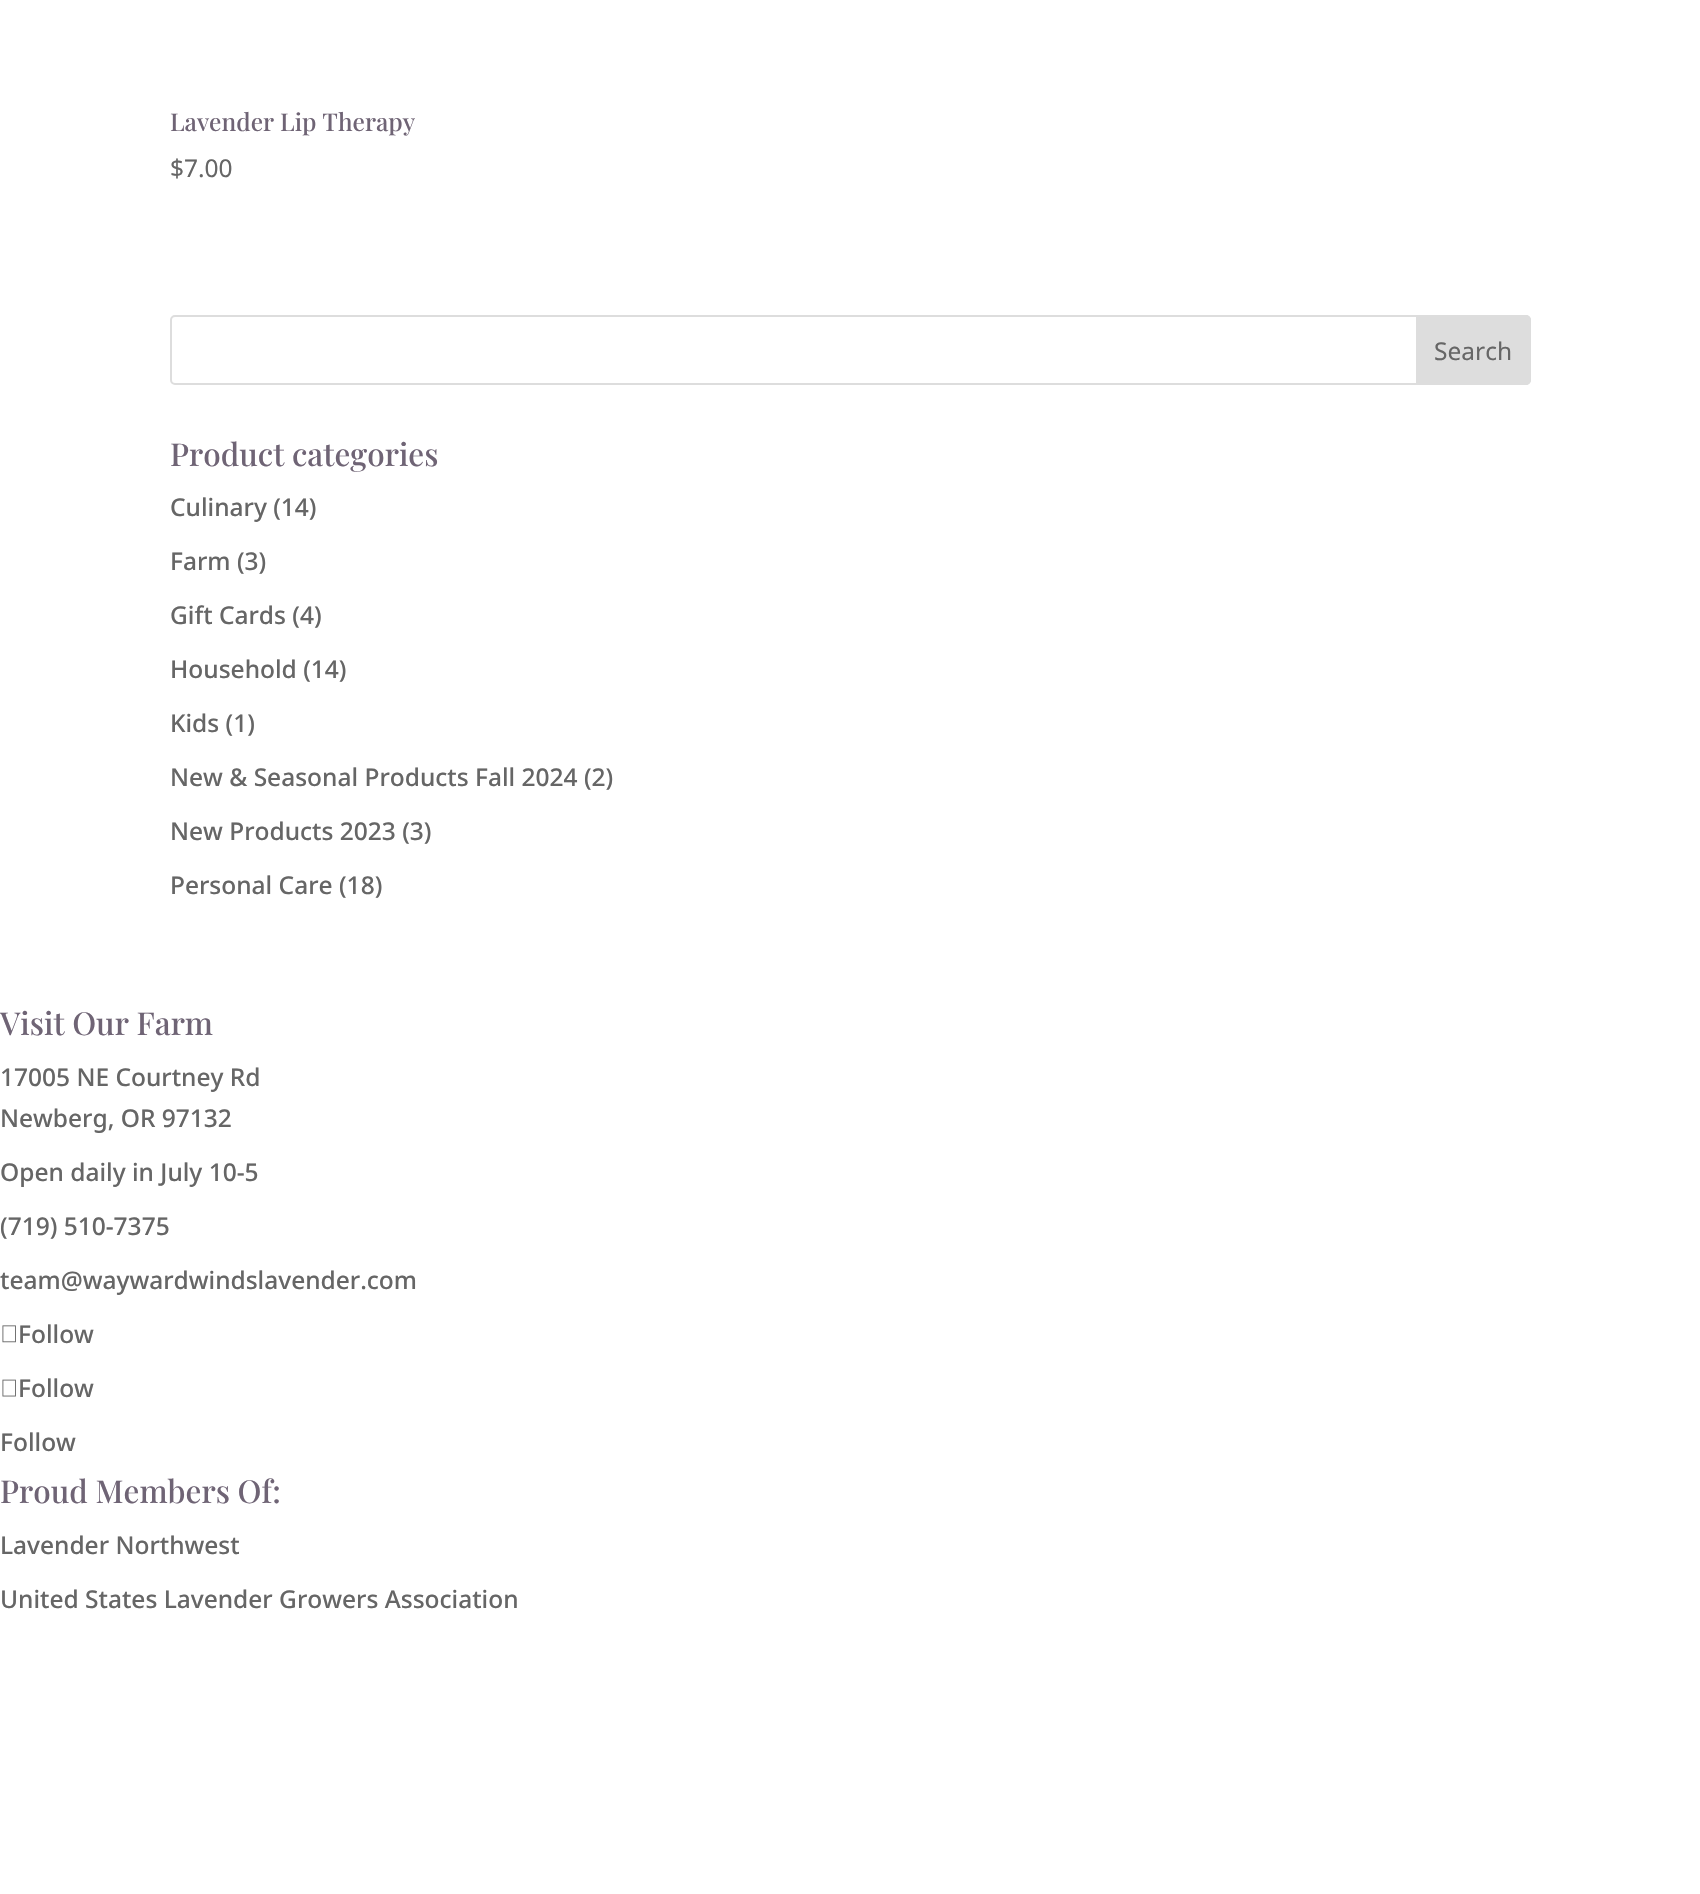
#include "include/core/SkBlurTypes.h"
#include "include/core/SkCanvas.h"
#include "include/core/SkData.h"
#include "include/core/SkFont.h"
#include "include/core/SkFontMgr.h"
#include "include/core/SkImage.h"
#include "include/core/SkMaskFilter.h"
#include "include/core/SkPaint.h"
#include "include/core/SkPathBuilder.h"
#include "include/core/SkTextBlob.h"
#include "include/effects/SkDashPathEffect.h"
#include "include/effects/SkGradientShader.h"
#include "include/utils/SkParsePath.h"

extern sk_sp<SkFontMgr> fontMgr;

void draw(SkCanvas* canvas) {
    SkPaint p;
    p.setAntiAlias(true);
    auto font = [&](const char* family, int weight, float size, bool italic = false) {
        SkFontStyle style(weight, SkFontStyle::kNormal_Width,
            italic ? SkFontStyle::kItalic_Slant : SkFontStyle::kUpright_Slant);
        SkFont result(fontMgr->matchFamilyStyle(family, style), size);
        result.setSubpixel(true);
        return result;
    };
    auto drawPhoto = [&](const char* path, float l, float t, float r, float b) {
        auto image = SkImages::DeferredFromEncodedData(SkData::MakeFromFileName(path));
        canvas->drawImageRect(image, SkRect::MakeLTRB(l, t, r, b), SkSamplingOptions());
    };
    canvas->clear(0xFFFFFFFF);
    auto font1 = font("Playfair Display", 500, 24.5f);
    p.setColor(0xFF6F6475);
    canvas->drawString("Lavender Lip Therapy", 170, 131, font1, p);
    auto font2 = font("Noto Sans", 400, 24.5f);
    p.setColor(0xFF666666);
    canvas->drawString("$7.00", 170, 177, font2, p);
    p.setStyle(SkPaint::kStroke_Style);
    p.setStrokeWidth(2);
    p.setColor(0xFFDDDDDD);
    canvas->drawRoundRect(SkRect::MakeLTRB(171, 316, 1530, 384), 4, 4, p);
    p.setStyle(SkPaint::kFill_Style);
    canvas->drawPath(SkPathBuilder().moveTo(1417, 316).lineTo(1526, 316).cubicTo(1528, 316, 1530, 318, 1530, 320).lineTo(1530, 380).cubicTo(1530, 382, 1528, 384, 1526, 384).lineTo(1417, 384).close().detach(), p);
    p.setStyle(SkPaint::kStroke_Style);
    canvas->drawPath(SkPathBuilder().moveTo(1417, 316).lineTo(1526, 316).cubicTo(1528, 316, 1530, 318, 1530, 320).lineTo(1530, 380).cubicTo(1530, 382, 1528, 384, 1526, 384).lineTo(1417, 384).close().detach(), p);
    p.setStyle(SkPaint::kFill_Style);
    p.setColor(0xFF666666);
    canvas->drawString("Search", 1434, 360, font2, p);
    auto font3 = font("Playfair Display", 500, 31.5f);
    p.setColor(0xFF6F6475);
    canvas->drawString("Product categories", 170, 466, font3, p);
    auto font4 = font("Noto Sans", 500, 24.5f);
    p.setColor(0xFF666666);
    {
        const struct { const char* s; float x, y; } items[] = {
            {"Culinary (14)", 170, 516},
            {"Farm (3)", 170, 570},
            {"Gift Cards (4)", 170, 624},
            {"Household (14)", 170, 678},
            {"Kids (1)", 170, 732},
            {"New & Seasonal Products Fall 2024 (2)", 170, 786},
            {"New Products 2023 (3)", 170, 840},
            {"Personal Care (18)", 170, 894},
        };
        for (auto [s, x, y] : items) {
            canvas->drawString(s, x, y, font4, p);
        }
    }
    p.setColor(0xFF6F6475);
    canvas->drawString("Visit Our Farm", 0, 1035, font3, p);
    p.setColor(0xFF666666);
    {
        const struct { const char* s; float x, y; } items[] = {
            {"17005 NE Courtney Rd", 0, 1086},
            {"Newberg, OR 97132", 0, 1127},
            {"Open daily in July 10-5", 0, 1181},
            {"(719) 510-7375", 0, 1235},
            {"team@waywardwindslavender.com", 0, 1289},
        };
        for (auto [s, x, y] : items) {
            canvas->drawString(s, x, y, font4, p);
        }
    }
    drawPhoto("media/1.png", 2, 1325, 16, 1343);
    canvas->drawString("Follow", 18, 1343, font4, p);
    drawPhoto("media/2.png", 2, 1379, 16, 1397);
    canvas->drawString("Follow", 18, 1397, font4, p);
    canvas->drawString("Follow", 0, 1451, font4, p);
    p.setColor(0xFF6F6475);
    canvas->drawString("Proud Members Of:", 0, 1503, font3, p);
    p.setColor(0xFF666666);
    canvas->drawString("Lavender Northwest", 0, 1554, font4, p);
    canvas->drawString("United States Lavender Growers Association", 0, 1608, font4, p);
}
